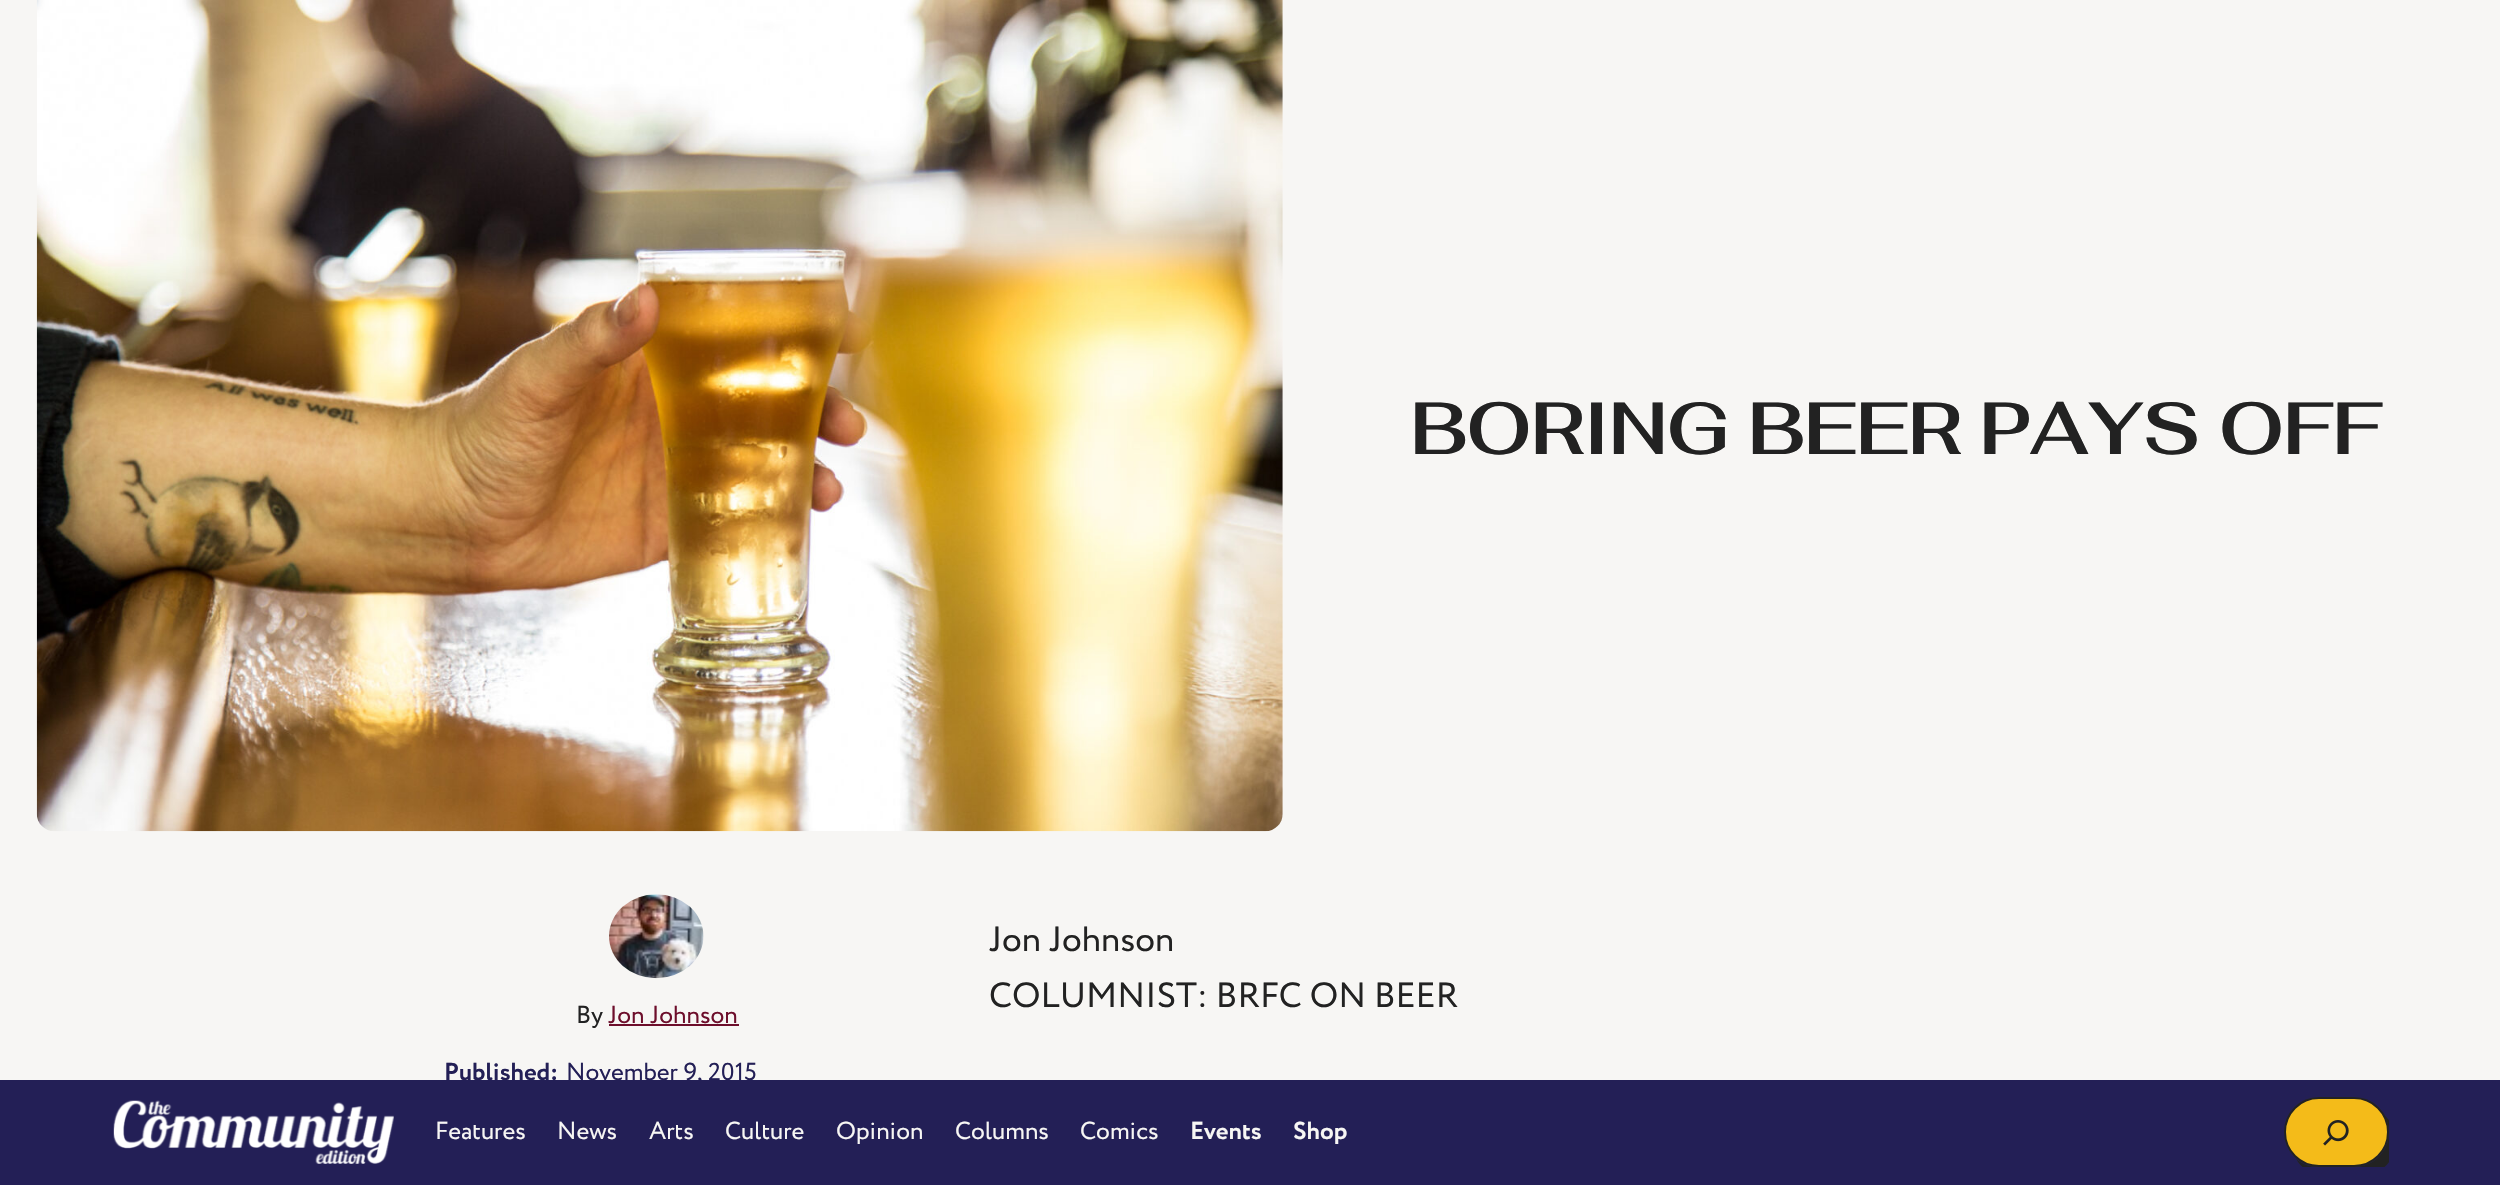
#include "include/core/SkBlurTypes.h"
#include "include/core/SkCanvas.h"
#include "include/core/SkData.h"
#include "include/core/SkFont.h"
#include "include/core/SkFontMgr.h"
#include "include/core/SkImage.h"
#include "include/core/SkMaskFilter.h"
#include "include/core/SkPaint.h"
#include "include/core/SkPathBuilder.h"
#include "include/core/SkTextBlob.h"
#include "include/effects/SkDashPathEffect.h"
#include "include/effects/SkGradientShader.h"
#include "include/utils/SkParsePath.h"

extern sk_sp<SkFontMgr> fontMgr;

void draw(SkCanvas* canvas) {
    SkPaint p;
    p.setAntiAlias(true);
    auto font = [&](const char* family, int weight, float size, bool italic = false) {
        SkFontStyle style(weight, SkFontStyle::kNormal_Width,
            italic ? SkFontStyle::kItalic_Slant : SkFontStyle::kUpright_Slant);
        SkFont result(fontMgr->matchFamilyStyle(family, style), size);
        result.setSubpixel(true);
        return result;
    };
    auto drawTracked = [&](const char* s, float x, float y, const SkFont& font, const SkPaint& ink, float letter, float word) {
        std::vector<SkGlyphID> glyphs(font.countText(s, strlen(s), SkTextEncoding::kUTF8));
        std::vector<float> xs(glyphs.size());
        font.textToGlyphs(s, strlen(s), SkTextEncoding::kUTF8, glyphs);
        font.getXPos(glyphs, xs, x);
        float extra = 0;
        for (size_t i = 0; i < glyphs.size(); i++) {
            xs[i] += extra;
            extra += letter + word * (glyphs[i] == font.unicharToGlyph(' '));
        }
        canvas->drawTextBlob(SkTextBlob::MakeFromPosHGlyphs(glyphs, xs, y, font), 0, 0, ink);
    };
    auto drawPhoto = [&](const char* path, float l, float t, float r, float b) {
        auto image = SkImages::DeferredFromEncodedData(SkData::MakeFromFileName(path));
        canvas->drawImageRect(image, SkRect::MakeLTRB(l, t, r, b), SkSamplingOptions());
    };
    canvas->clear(0xFFF7F6F4);
    drawPhoto("media/1.png", 36, 0, 1283, 832);
    auto font1 = font("Fahkwang", 600, 73.5f);
    p.setColor(0xFF222222);
    drawTracked("BORING BEER PAYS OFF", 1410, 454, font1, p, -1.5f, 0);
    auto font2 = font("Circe", 400, 35);
    canvas->drawString("Jon Johnson", 989, 951, font2, p);
    canvas->drawString("COLUMNIST: BRFC ON BEER", 989, 1007, font2, p);
    drawPhoto("media/2.png", 609, 894, 704, 979);
    auto font3 = font("Circe", 400, 24.5f);
    canvas->drawString("By", 576, 1023, font3, p);
    p.setColor(0xFF6D0E2B);
    canvas->drawString("Jon Johnson", 608, 1023, font3, p);
    canvas->drawRect(SkRect::MakeLTRB(609, 1024, 739, 1026), p);
    auto font4 = font("Circe", 700, 24.5f);
    p.setColor(0xFF231F56);
    canvas->drawString("Published:", 444, 1080, font4, p);
    canvas->drawString("November 9, 2015", 566, 1080, font3, p);
    canvas->drawRect(SkRect::MakeLTRB(0, 1080, 2500, 1185), p);
    drawPhoto("media/3.png", 113, 1100, 394, 1164);
    p.setColor(0xFFF7F6F4);
    {
        const struct { const char* s; float x, y; } items[] = {
            {"Features", 435, 1139},
            {"News", 557, 1139},
            {"Arts", 649, 1139},
            {"Culture", 725, 1139},
            {"Opinion", 836, 1139},
            {"Columns", 955, 1139},
            {"Comics", 1080, 1139},
        };
        for (auto [s, x, y] : items) {
            canvas->drawString(s, x, y, font3, p);
        }
    }
    canvas->drawString("Events", 1190, 1139, font4, p);
    canvas->drawString("Shop", 1293, 1139, font4, p);
    canvas->save();
    canvas->clipRect(SkRect::MakeLTRB(2284, 1097, 2389, 1167));
    p.setColor(0xFF222222);
    canvas->drawPath(SkPathBuilder().moveTo(2296, 1159).cubicTo(2308, 1179, 2329, 1176, 2349, 1176).cubicTo(2358, 1176, 2367, 1177, 2375, 1173).cubicTo(2399, 1163, 2403, 1131, 2384, 1115).cubicTo(2387, 1120, 2389, 1126, 2389, 1132).cubicTo(2389, 1152, 2373, 1167, 2354, 1167).lineTo(2319, 1167).cubicTo(2310, 1167, 2302, 1164, 2296, 1159).close().detach(), p);
    canvas->restore();
    p.setColor(0xFFF4BB19);
    canvas->drawRoundRect(SkRect::MakeLTRB(2285, 1098, 2388, 1166), 34, 34, p);
    p.setStyle(SkPaint::kStroke_Style);
    p.setStrokeWidth(2);
    p.setColor(0xFF222222);
    canvas->drawRoundRect(SkRect::MakeLTRB(2285, 1098, 2388, 1166), 34, 34, p);
    drawPhoto("media/4.png", 2323, 1120, 2349, 1146);
}
